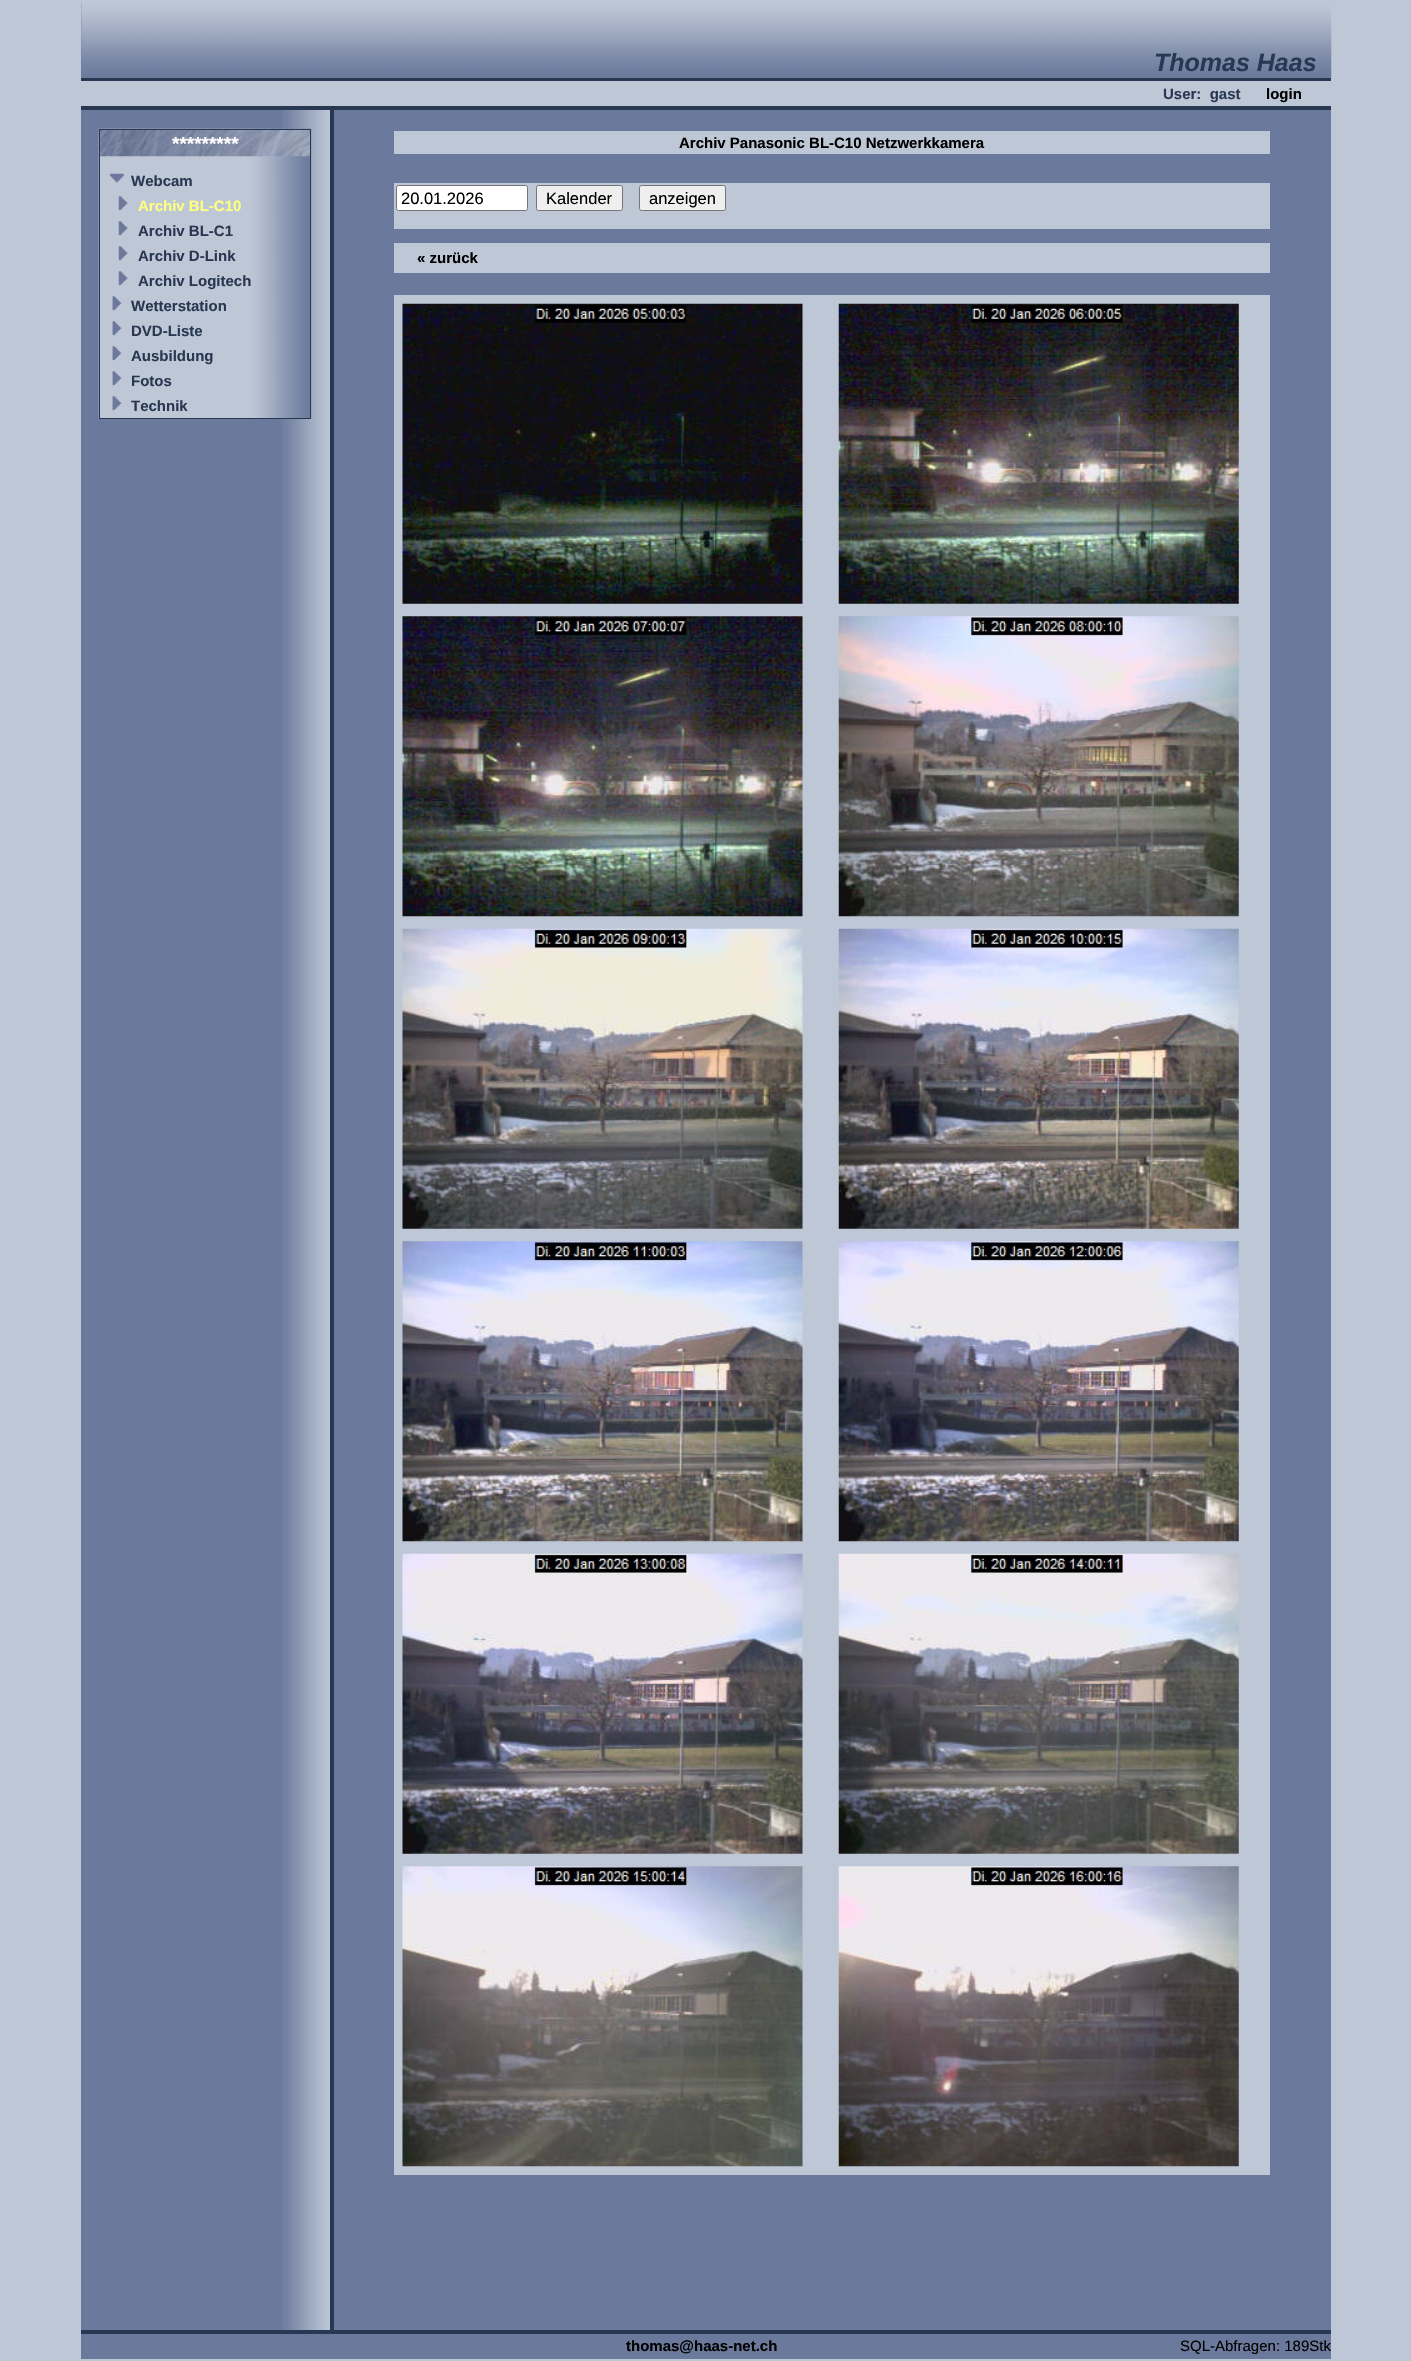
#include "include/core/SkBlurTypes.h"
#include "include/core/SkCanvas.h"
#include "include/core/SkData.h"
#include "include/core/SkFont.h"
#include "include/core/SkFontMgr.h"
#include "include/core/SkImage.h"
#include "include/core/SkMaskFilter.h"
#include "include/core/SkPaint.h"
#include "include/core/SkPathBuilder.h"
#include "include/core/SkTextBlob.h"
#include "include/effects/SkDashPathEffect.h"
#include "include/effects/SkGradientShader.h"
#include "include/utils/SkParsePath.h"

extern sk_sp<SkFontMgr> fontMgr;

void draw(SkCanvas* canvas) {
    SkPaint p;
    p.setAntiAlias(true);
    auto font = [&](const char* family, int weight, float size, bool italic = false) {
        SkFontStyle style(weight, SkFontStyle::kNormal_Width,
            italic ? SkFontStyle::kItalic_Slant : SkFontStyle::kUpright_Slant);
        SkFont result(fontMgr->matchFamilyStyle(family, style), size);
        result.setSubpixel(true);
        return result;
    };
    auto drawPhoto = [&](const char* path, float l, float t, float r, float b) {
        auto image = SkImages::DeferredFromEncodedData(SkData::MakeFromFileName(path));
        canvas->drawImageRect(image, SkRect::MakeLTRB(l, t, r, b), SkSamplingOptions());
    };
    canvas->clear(0xFFBDC7D6);
    p.setColor(0xFF6B799C);
    canvas->drawRect(SkRect::MakeLTRB(81, 3, 1331, 2359), p);
    drawPhoto("media/1.png", 81, 3, 1332, 78);
    auto font1 = font("Liberation Sans", 700, 25, true);
    p.setColor(0xFF293852);
    canvas->drawString("Thomas Haas", 1154, 71, font1, p);
    canvas->drawRect(SkRect::MakeLTRB(81, 78, 1331, 81), p);
    p.setColor(0xFFBDC7D6);
    canvas->drawRect(SkRect::MakeLTRB(81, 81, 1331, 106), p);
    auto font2 = font("Liberation Sans", 700, 15);
    p.setColor(0xFF293852);
    canvas->drawString("User:  gast", 1163, 99, font2, p);
    p.setColor(0xFF000000);
    canvas->drawString("login", 1266, 99, font2, p);
    p.setColor(0xFF293852);
    canvas->drawRect(SkRect::MakeLTRB(81, 106, 1331, 110), p);
    drawPhoto("media/2.png", 282, 110, 330, 2330);
    drawPhoto("media/3.png", 98, 128, 312, 419);
    p.setStyle(SkPaint::kStroke_Style);
    p.setStrokeWidth(1);
    canvas->drawRect(SkRect::MakeLTRB(99.5f, 129.5f, 310.5f, 418.5f), p);
    drawPhoto("media/4.png", 100, 130, 310, 157);
    auto font3 = font("Liberation Sans", 700, 19);
    p.setStyle(SkPaint::kFill_Style);
    p.setColor(0xFFFFFFFF);
    canvas->drawString("*********", 172, 150, font3, p);
    drawPhoto("media/5.png", 109, 173, 124, 183);
    p.setColor(0xFF293852);
    canvas->drawString("Webcam", 131, 186, font2, p);
    drawPhoto("media/6.png", 118, 196, 128, 211);
    p.setColor(0xFFFFFF80);
    canvas->drawString("Archiv BL-C10", 138, 211, font2, p);
    drawPhoto("media/6.png", 118, 221, 128, 236);
    p.setColor(0xFF293852);
    canvas->drawString("Archiv BL-C1", 138, 236, font2, p);
    drawPhoto("media/6.png", 118, 246, 128, 261);
    canvas->drawString("Archiv D-Link", 138, 261, font2, p);
    drawPhoto("media/6.png", 118, 271, 128, 286);
    canvas->drawString("Archiv Logitech", 138, 286, font2, p);
    drawPhoto("media/7.png", 112, 296, 122, 311);
    canvas->drawString("Wetterstation", 131, 311, font2, p);
    drawPhoto("media/7.png", 112, 321, 122, 336);
    canvas->drawString("DVD-Liste", 131, 336, font2, p);
    drawPhoto("media/7.png", 112, 346, 122, 361);
    canvas->drawString("Ausbildung", 131, 361, font2, p);
    drawPhoto("media/7.png", 112, 371, 122, 386);
    canvas->drawString("Fotos", 131, 386, font2, p);
    drawPhoto("media/7.png", 112, 396, 122, 411);
    canvas->drawString("Technik", 131, 411, font2, p);
    canvas->drawRect(SkRect::MakeLTRB(330, 110, 334, 2330), p);
    p.setColor(0xFFBDC7D6);
    canvas->drawRect(SkRect::MakeLTRB(394, 131, 1270, 154), p);
    p.setColor(0xFF000000);
    canvas->drawString("Archiv Panasonic BL-C10 Netzwerkkamera", 679, 148, font2, p);
    p.setColor(0xFFBDC7D6);
    canvas->drawRect(SkRect::MakeLTRB(394, 183, 1270, 229), p);
    p.setColor(0xFFFFFFFF);
    canvas->drawRoundRect(SkRect::MakeLTRB(396.5f, 185.5f, 527.5f, 210.5f), 2, 2, p);
    p.setStyle(SkPaint::kStroke_Style);
    p.setColor(0xFF767676);
    canvas->drawRoundRect(SkRect::MakeLTRB(396.5f, 185.5f, 527.5f, 210.5f), 2, 2, p);
    auto font4 = font("Liberation Sans", 400, 16.5f);
    p.setStyle(SkPaint::kFill_Style);
    p.setColor(0xFF000000);
    canvas->drawString("20.01.2026", 401, 204, font4, p);
    p.setColor(0xFFEFEFEF);
    canvas->drawRoundRect(SkRect::MakeLTRB(536.5f, 185.5f, 622.5f, 210.5f), 2, 2, p);
    p.setStyle(SkPaint::kStroke_Style);
    p.setColor(0xFF767676);
    canvas->drawRoundRect(SkRect::MakeLTRB(536.5f, 185.5f, 622.5f, 210.5f), 2, 2, p);
    p.setStyle(SkPaint::kFill_Style);
    p.setColor(0xFF000000);
    canvas->drawString("Kalender", 546, 204, font4, p);
    p.setColor(0xFFEFEFEF);
    canvas->drawRoundRect(SkRect::MakeLTRB(639.5f, 185.5f, 725.5f, 210.5f), 2, 2, p);
    p.setStyle(SkPaint::kStroke_Style);
    p.setColor(0xFF767676);
    canvas->drawRoundRect(SkRect::MakeLTRB(639.5f, 185.5f, 725.5f, 210.5f), 2, 2, p);
    p.setStyle(SkPaint::kFill_Style);
    p.setColor(0xFF000000);
    canvas->drawString("anzeigen", 649, 204, font4, p);
    p.setColor(0xFFBDC7D6);
    canvas->drawRect(SkRect::MakeLTRB(394, 243, 1270, 273), p);
    p.setColor(0xFF000000);
    canvas->drawString("« zurück", 417, 263, font2, p);
    p.setColor(0xFFBDC7D6);
    canvas->drawRect(SkRect::MakeLTRB(394, 295, 1270, 2175), p);
    drawPhoto("media/8.png", 402, 303, 803, 604);
    drawPhoto("media/9.png", 838, 303, 1239, 604);
    drawPhoto("media/10.png", 402, 616, 803, 917);
    drawPhoto("media/11.png", 838, 616, 1239, 917);
    drawPhoto("media/12.png", 402, 928, 803, 1229);
    drawPhoto("media/13.png", 838, 928, 1239, 1229);
    drawPhoto("media/14.png", 402, 1241, 803, 1542);
    drawPhoto("media/15.png", 838, 1241, 1239, 1542);
    drawPhoto("media/16.png", 402, 1553, 803, 1854);
    drawPhoto("media/17.png", 838, 1553, 1239, 1854);
    drawPhoto("media/18.png", 402, 1866, 803, 2167);
    drawPhoto("media/19.png", 838, 1866, 1239, 2167);
    p.setColor(0xFF293852);
    canvas->drawRect(SkRect::MakeLTRB(81, 2330, 1331, 2334), p);
    p.setColor(0xFF000000);
    canvas->drawString("thomas@haas-net.ch", 626, 2351, font2, p);
    auto font5 = font("Liberation Sans", 400, 15);
    canvas->drawString("SQL-Abfragen: 189Stk", 1180, 2351, font5, p);
}
